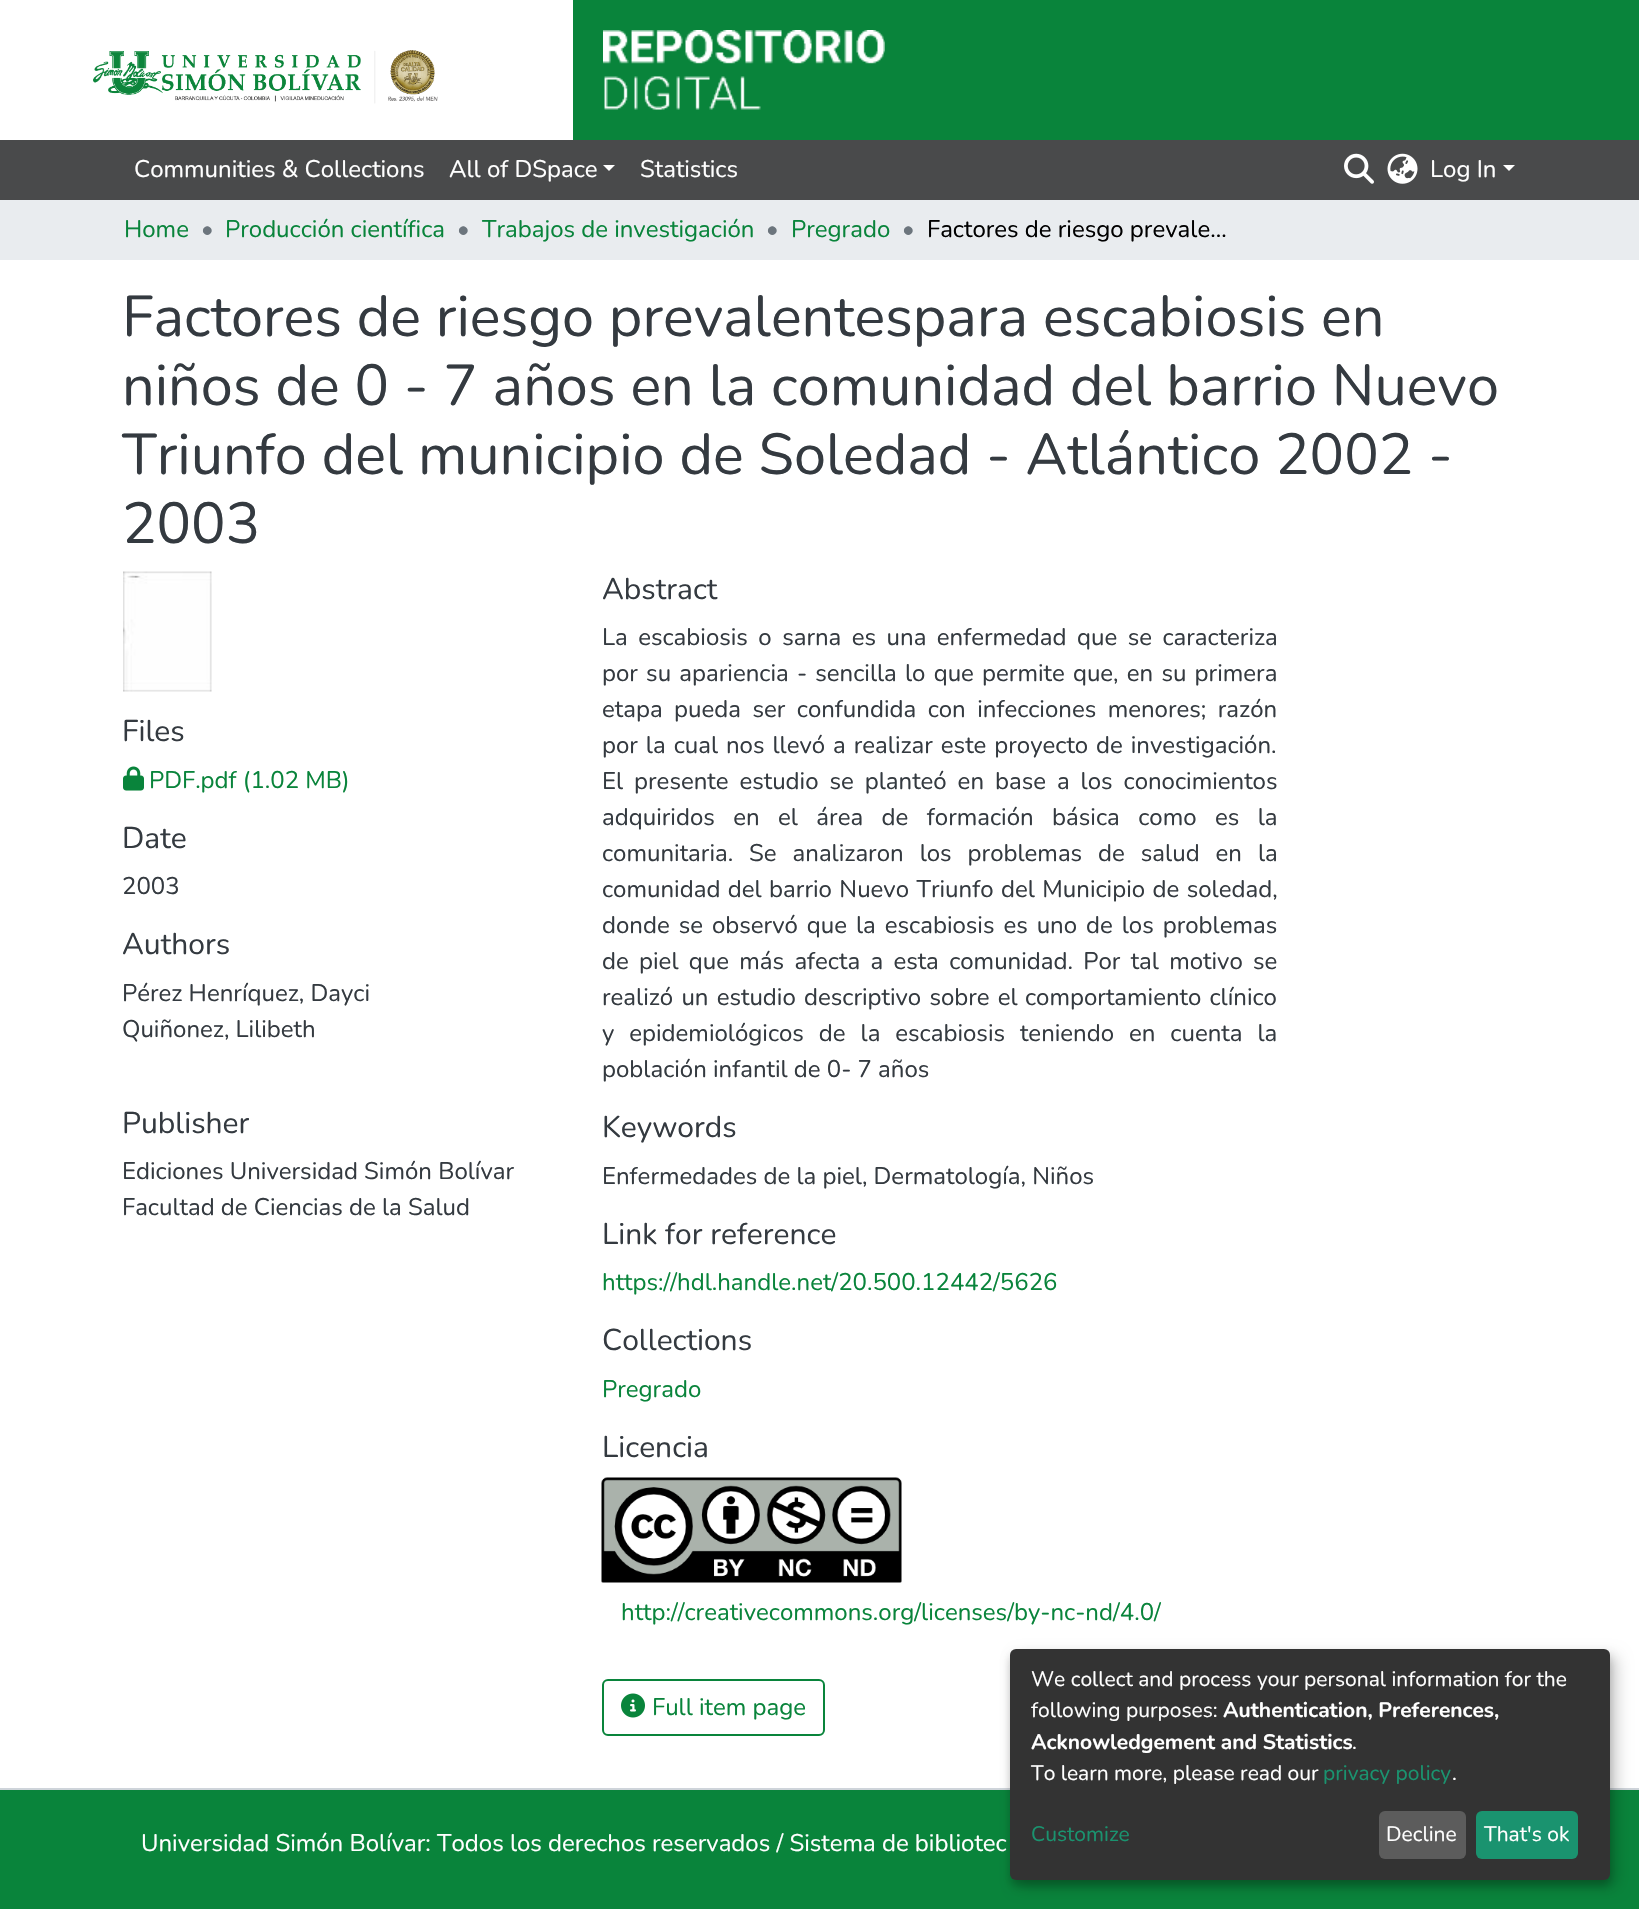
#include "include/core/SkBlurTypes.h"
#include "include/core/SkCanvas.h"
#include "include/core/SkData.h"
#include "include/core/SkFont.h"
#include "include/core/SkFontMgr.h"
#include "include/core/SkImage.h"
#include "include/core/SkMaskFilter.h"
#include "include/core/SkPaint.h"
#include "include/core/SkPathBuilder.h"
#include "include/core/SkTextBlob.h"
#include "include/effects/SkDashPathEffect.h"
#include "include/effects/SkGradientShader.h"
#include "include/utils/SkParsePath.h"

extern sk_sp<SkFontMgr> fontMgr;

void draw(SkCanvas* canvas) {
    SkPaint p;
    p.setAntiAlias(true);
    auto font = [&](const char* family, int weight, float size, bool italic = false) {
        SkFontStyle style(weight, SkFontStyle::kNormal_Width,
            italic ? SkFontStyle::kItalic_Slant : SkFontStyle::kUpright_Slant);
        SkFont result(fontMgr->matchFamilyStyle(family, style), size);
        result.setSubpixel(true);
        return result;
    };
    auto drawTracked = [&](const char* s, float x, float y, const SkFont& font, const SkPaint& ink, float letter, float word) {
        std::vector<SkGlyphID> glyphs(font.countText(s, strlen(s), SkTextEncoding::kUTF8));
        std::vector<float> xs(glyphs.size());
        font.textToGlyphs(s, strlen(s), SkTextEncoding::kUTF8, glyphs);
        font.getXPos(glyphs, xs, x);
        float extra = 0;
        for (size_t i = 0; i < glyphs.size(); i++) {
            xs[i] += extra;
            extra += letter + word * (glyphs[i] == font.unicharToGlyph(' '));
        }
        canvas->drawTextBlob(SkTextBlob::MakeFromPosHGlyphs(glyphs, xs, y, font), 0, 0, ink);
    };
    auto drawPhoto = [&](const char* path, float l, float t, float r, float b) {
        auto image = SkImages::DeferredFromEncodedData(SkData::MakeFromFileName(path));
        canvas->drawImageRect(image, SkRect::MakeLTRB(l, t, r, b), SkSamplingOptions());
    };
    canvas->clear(0xFFFFFFFF);
    p.setColor(0xFF09843B);
    canvas->drawRect(SkRect::MakeLTRB(573, 0, 1639, 140), p);
    drawPhoto("media/1.png", 93, 50, 438, 104);
    drawPhoto("media/2.png", 603, 30, 885, 110);
    p.setColor(0xFF494A4B);
    canvas->drawRect(SkRect::MakeLTRB(0, 140, 1639, 200), p);
    auto font1 = font("Nunito", 400, 24);
    p.setColor(0xFFFFFFFF);
    canvas->drawString("Communities & Collections", 134, 177, font1, p);
    canvas->drawString("All of DSpace", 449, 177, font1, p);
    canvas->drawPath(SkPathBuilder().moveTo(603, 165).lineTo(615, 165).lineTo(609, 171).close().detach(), p);
    canvas->drawString("Statistics", 640, 177, font1, p);
    drawPhoto("media/3.png", 1344, 153, 1374, 184);
    drawPhoto("media/4.png", 1387, 153, 1418, 184);
    canvas->drawString("Log In", 1430, 177, font1, p);
    canvas->drawPath(SkPathBuilder().moveTo(1503, 165).lineTo(1515, 165).lineTo(1509, 171).close().detach(), p);
    p.setColor(0xFFE9ECEF);
    canvas->drawRect(SkRect::MakeLTRB(0, 200, 1639, 260), p);
    p.setColor(0xFF09843B);
    canvas->drawString("Home", 124, 237, font1, p);
    p.setColor(0xFF6C757D);
    canvas->drawString("•", 201, 237, font1, p);
    p.setColor(0xFF09843B);
    canvas->drawString("Producción científica", 225, 237, font1, p);
    p.setColor(0xFF6C757D);
    canvas->drawString("•", 457, 237, font1, p);
    p.setColor(0xFF09843B);
    canvas->drawString("Trabajos de investigación", 482, 237, font1, p);
    p.setColor(0xFF6C757D);
    canvas->drawString("•", 766, 237, font1, p);
    p.setColor(0xFF09843B);
    canvas->drawString("Pregrado", 791, 237, font1, p);
    p.setColor(0xFF6C757D);
    canvas->drawString("•", 902, 237, font1, p);
    p.setColor(0xFF000000);
    canvas->drawString("Factores de riesgo prevale…", 927, 237, font1, p);
    auto font2 = font("Nunito", 400, 57.6f);
    p.setColor(0xFF343A40);
    {
        const struct { const char* s; float x, y; } items[] = {
            {"Factores de riesgo prevalentespara escabiosis en", 122, 336},
            {"niños de 0 - 7 años en la comunidad del barrio Nuevo", 122, 405},
            {"Triunfo del municipio de Soledad - Atlántico 2002 -", 122, 474},
            {"2003", 122, 543},
        };
        for (auto [s, x, y] : items) {
            canvas->drawString(s, x, y, font2, p);
        }
    }
    drawPhoto("media/5.png", 123, 571, 212, 692);
    auto font3 = font("Nunito", 400, 30);
    canvas->drawString("Files", 122, 741, font3, p);
    drawPhoto("media/6.png", 123, 766, 144, 791);
    p.setColor(0xFF09843B);
    canvas->drawString("PDF.pdf (1.02 MB)", 149, 788, font1, p);
    p.setColor(0xFF343A40);
    canvas->drawString("Date", 122, 848, font3, p);
    canvas->drawString("2003", 122, 894, font1, p);
    canvas->drawString("Authors", 122, 954, font3, p);
    canvas->drawString("Pérez Henríquez, Dayci", 122, 1001, font1, p);
    canvas->drawString("Quiñonez, Lilibeth", 122, 1037, font1, p);
    canvas->drawString("Publisher", 122, 1133, font3, p);
    canvas->drawString("Ediciones Universidad Simón Bolívar", 122, 1179, font1, p);
    canvas->drawString("Facultad de Ciencias de la Salud", 122, 1215, font1, p);
    canvas->drawString("Abstract", 602, 599, font3, p);
    drawTracked("La escabiosis o sarna es una enfermedad que se caracteriza", 602, 645, font1, p, 0, 4.25f);
    drawTracked("por su apariencia - sencilla lo que permite que, en su primera", 602, 681, font1, p, 0, 2);
    drawTracked("etapa pueda ser confundida con infecciones menores; razón", 602, 717, font1, p, 0, 5.25f);
    drawTracked("por la cual nos llevó a realizar este proyecto de investigación.", 602, 753, font1, p, 0, 1.75f);
    drawTracked("El presente estudio se planteó en base a los conocimientos", 602, 789, font1, p, 0, 4.75f);
    drawTracked("adquiridos en el área de formación básica como es la", 602, 825, font1, p, 0, 12.25f);
    drawTracked("comunitaria. Se analizaron los problemas de salud en la", 602, 861, font1, p, 0, 9.75f);
    drawTracked("comunidad del barrio Nuevo Triunfo del Municipio de soledad,", 602, 897, font1, p, 0, 1.25f);
    drawTracked("donde se observó que la escabiosis es uno de los problemas", 602, 933, font1, p, 0, 2.75f);
    drawTracked("de piel que más afecta a esta comunidad. Por tal motivo se", 602, 969, font1, p, 0, 4.1f);
    drawTracked("realizó un estudio descriptivo sobre el", 602, 1005, font1, p, 0, 2);
    drawTracked("comportamiento clínico", 1025, 1005, font1, p, 0, 2);
    drawTracked("y epidemiológicos de la escabiosis teniendo en cuenta la", 602, 1041, font1, p, 0, 8.75f);
    canvas->drawString("población infantil de 0- 7 años", 602, 1077, font1, p);
    canvas->drawString("Keywords", 602, 1137, font3, p);
    canvas->drawString("Enfermedades de la piel, Dermatología, Niños", 602, 1184, font1, p);
    canvas->drawString("Link for reference", 602, 1244, font3, p);
    p.setColor(0xFF09843B);
    canvas->drawString("https://hdl.handle.net/20.500.12442/5626", 602, 1290, font1, p);
    p.setColor(0xFF343A40);
    canvas->drawString("Collections", 602, 1350, font3, p);
    p.setColor(0xFF09843B);
    canvas->drawString("Pregrado", 602, 1397, font1, p);
    p.setColor(0xFF343A40);
    canvas->drawString("Licencia", 602, 1457, font3, p);
    drawPhoto("media/7.png", 601, 1477, 902, 1583);
    p.setColor(0xFF09843B);
    canvas->drawString("http://creativecommons.org/licenses/by-nc-nd/4.0/", 621, 1620, font1, p);
    p.setStyle(SkPaint::kStroke_Style);
    p.setStrokeWidth(2);
    canvas->drawRoundRect(SkRect::MakeLTRB(603, 1680, 824, 1735), 5, 5, p);
    drawPhoto("media/8.png", 621, 1693, 645, 1718);
    p.setStyle(SkPaint::kFill_Style);
    canvas->drawString("Full item page", 652, 1715, font1, p);
    canvas->drawRect(SkRect::MakeLTRB(0, 1790, 1639, 1909), p);
    p.setColor(0xFFCED4DA);
    canvas->drawRect(SkRect::MakeLTRB(0, 1788, 1639, 1790), p);
    p.setColor(0xFFFFFFFF);
    canvas->drawString("Universidad Simón Bolívar: Todos los derechos reservados / Sistema de bibliotec", 141, 1851, font1, p);
    p.setColor(0x30000000);
    p.setMaskFilter(SkMaskFilter::MakeBlur(kNormal_SkBlurStyle, 7.5f));
    canvas->drawRoundRect(SkRect::MakeLTRB(1017, 1656, 1617, 1887), 6, 6, p);
    p.setMaskFilter(nullptr);
    p.setColor(0x33000000);
    p.setMaskFilter(SkMaskFilter::MakeBlur(kNormal_SkBlurStyle, 4.5f));
    canvas->drawRoundRect(SkRect::MakeLTRB(1010, 1655, 1610, 1886), 6, 6, p);
    p.setMaskFilter(nullptr);
    p.setColor(0xFF333333);
    canvas->drawRoundRect(SkRect::MakeLTRB(1010, 1649, 1610, 1880), 6, 6, p);
    auto font4 = font("Nunito", 400, 21);
    p.setColor(0xFFFFFFFF);
    canvas->drawString("We collect and process your personal information for the", 1031, 1686, font4, p);
    canvas->drawString("following purposes:", 1031, 1717, font4, p);
    auto font5 = font("Nunito", 700, 21);
    canvas->drawString("Authentication, Preferences,", 1223, 1717, font5, p);
    canvas->drawString("Acknowledgement and Statistics", 1031, 1749, font5, p);
    canvas->drawString(".", 1352, 1749, font4, p);
    canvas->drawString("To learn more, please read our", 1031, 1780, font4, p);
    p.setColor(0xFF1A936F);
    canvas->drawString("privacy policy", 1323, 1780, font4, p);
    p.setColor(0xFFFFFFFF);
    canvas->drawString(".", 1452, 1780, font4, p);
    p.setColor(0xFF1A936F);
    canvas->drawString("Customize", 1031, 1841, font4, p);
    p.setColor(0xFF5C5C5C);
    canvas->drawRoundRect(SkRect::MakeLTRB(1379, 1811, 1466, 1859), 6, 6, p);
    p.setColor(0xFFFFFFFF);
    canvas->drawString("Decline", 1386, 1841, font4, p);
    p.setColor(0xFF1A936F);
    canvas->drawRoundRect(SkRect::MakeLTRB(1476, 1811, 1578, 1859), 6, 6, p);
    p.setColor(0xFFFFFFFF);
    canvas->drawString("That's ok", 1484, 1841, font4, p);
}
